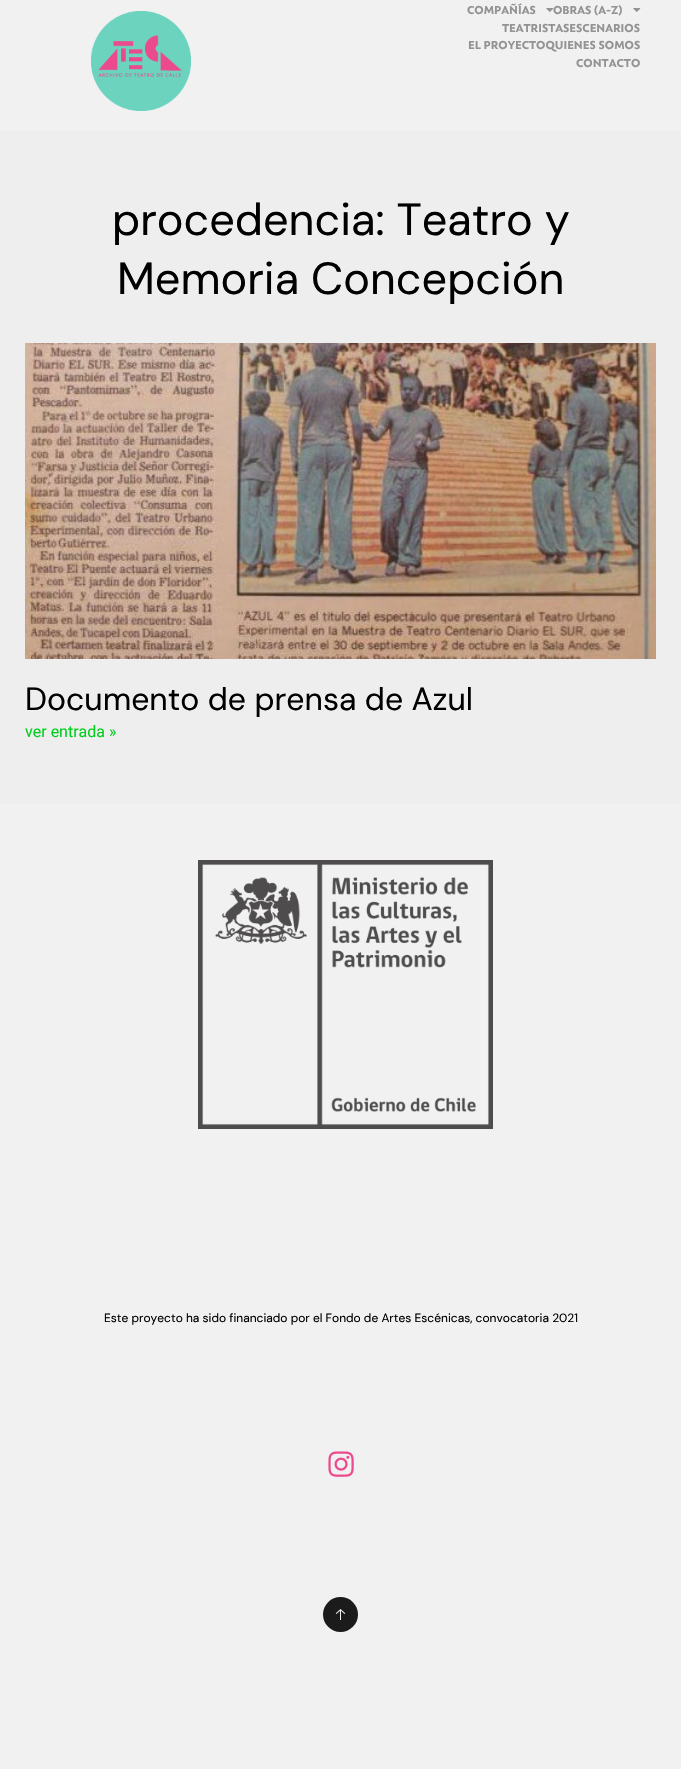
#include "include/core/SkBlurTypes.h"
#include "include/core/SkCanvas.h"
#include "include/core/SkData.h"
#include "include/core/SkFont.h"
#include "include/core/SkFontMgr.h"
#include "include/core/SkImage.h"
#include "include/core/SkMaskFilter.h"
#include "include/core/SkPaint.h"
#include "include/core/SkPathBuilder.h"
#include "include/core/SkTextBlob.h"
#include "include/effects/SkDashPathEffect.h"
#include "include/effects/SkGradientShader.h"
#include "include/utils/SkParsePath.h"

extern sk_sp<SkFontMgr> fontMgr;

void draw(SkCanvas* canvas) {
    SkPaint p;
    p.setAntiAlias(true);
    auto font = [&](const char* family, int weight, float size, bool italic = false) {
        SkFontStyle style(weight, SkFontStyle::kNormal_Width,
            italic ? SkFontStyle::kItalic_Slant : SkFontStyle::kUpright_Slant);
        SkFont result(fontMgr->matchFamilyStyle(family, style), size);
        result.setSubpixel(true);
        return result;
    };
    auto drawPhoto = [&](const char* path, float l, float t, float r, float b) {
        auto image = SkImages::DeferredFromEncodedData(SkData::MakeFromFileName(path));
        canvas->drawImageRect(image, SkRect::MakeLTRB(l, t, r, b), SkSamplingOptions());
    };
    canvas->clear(0xFFF1F1F1);
    drawPhoto("media/1.png", 91, 11, 191, 111);
    auto font1 = font("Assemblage", 700, 12);
    p.setColor(0xFF939393);
    canvas->drawString("COMPAÑÍAS", 467, 14, font1, p);
    drawPhoto("media/2.png", 546, 8, 554, 12);
    canvas->drawString("OBRAS (A-Z)", 553, 14, font1, p);
    drawPhoto("media/2.png", 633, 8, 641, 12);
    {
        const struct { const char* s; float x, y; } items[] = {
            {"TEATRISTASESCENARIOS", 502, 32},
            {"EL PROYECTOQUIENES SOMOS", 468, 49},
            {"CONTACTO", 576, 67},
        };
        for (auto [s, x, y] : items) {
            canvas->drawString(s, x, y, font1, p);
        }
    }
    p.setColor(0xFFEEEEEE);
    canvas->drawRect(SkRect::MakeLTRB(0, 131, 681, 804), p);
    auto font2 = font("DM Sans", 400, 45);
    p.setColor(0xFF000000);
    canvas->drawString("procedencia: Teatro y", 112, 235, font2, p);
    canvas->drawString("Memoria Concepción", 117, 294, font2, p);
    drawPhoto("media/3.png", 25, 343, 656, 659);
    auto font3 = font("DM Sans", 400, 32);
    canvas->drawString("Documento de prensa de Azul", 25, 710, font3, p);
    auto font4 = font("Roboto", 400, 16);
    p.setColor(0xFF00CE1B);
    canvas->drawString("ver entrada »", 25, 737, font4, p);
    drawPhoto("media/4.png", 198, 860, 493, 1129);
    auto font5 = font("DM Sans", 400, 12);
    p.setColor(0xFF000000);
    canvas->drawString("Este proyecto ha sido financiado por el Fondo de Artes Escénicas, convocatoria 2021", 104, 1322, font5, p);
    drawPhoto("media/5.png", 328, 1451, 354, 1477);
    p.setColor(0xFF1B1B1B);
    canvas->drawCircle(340.5f, 1614.5f, 17.5f, p);
    drawPhoto("media/6.png", 335, 1609, 346, 1620);
}
